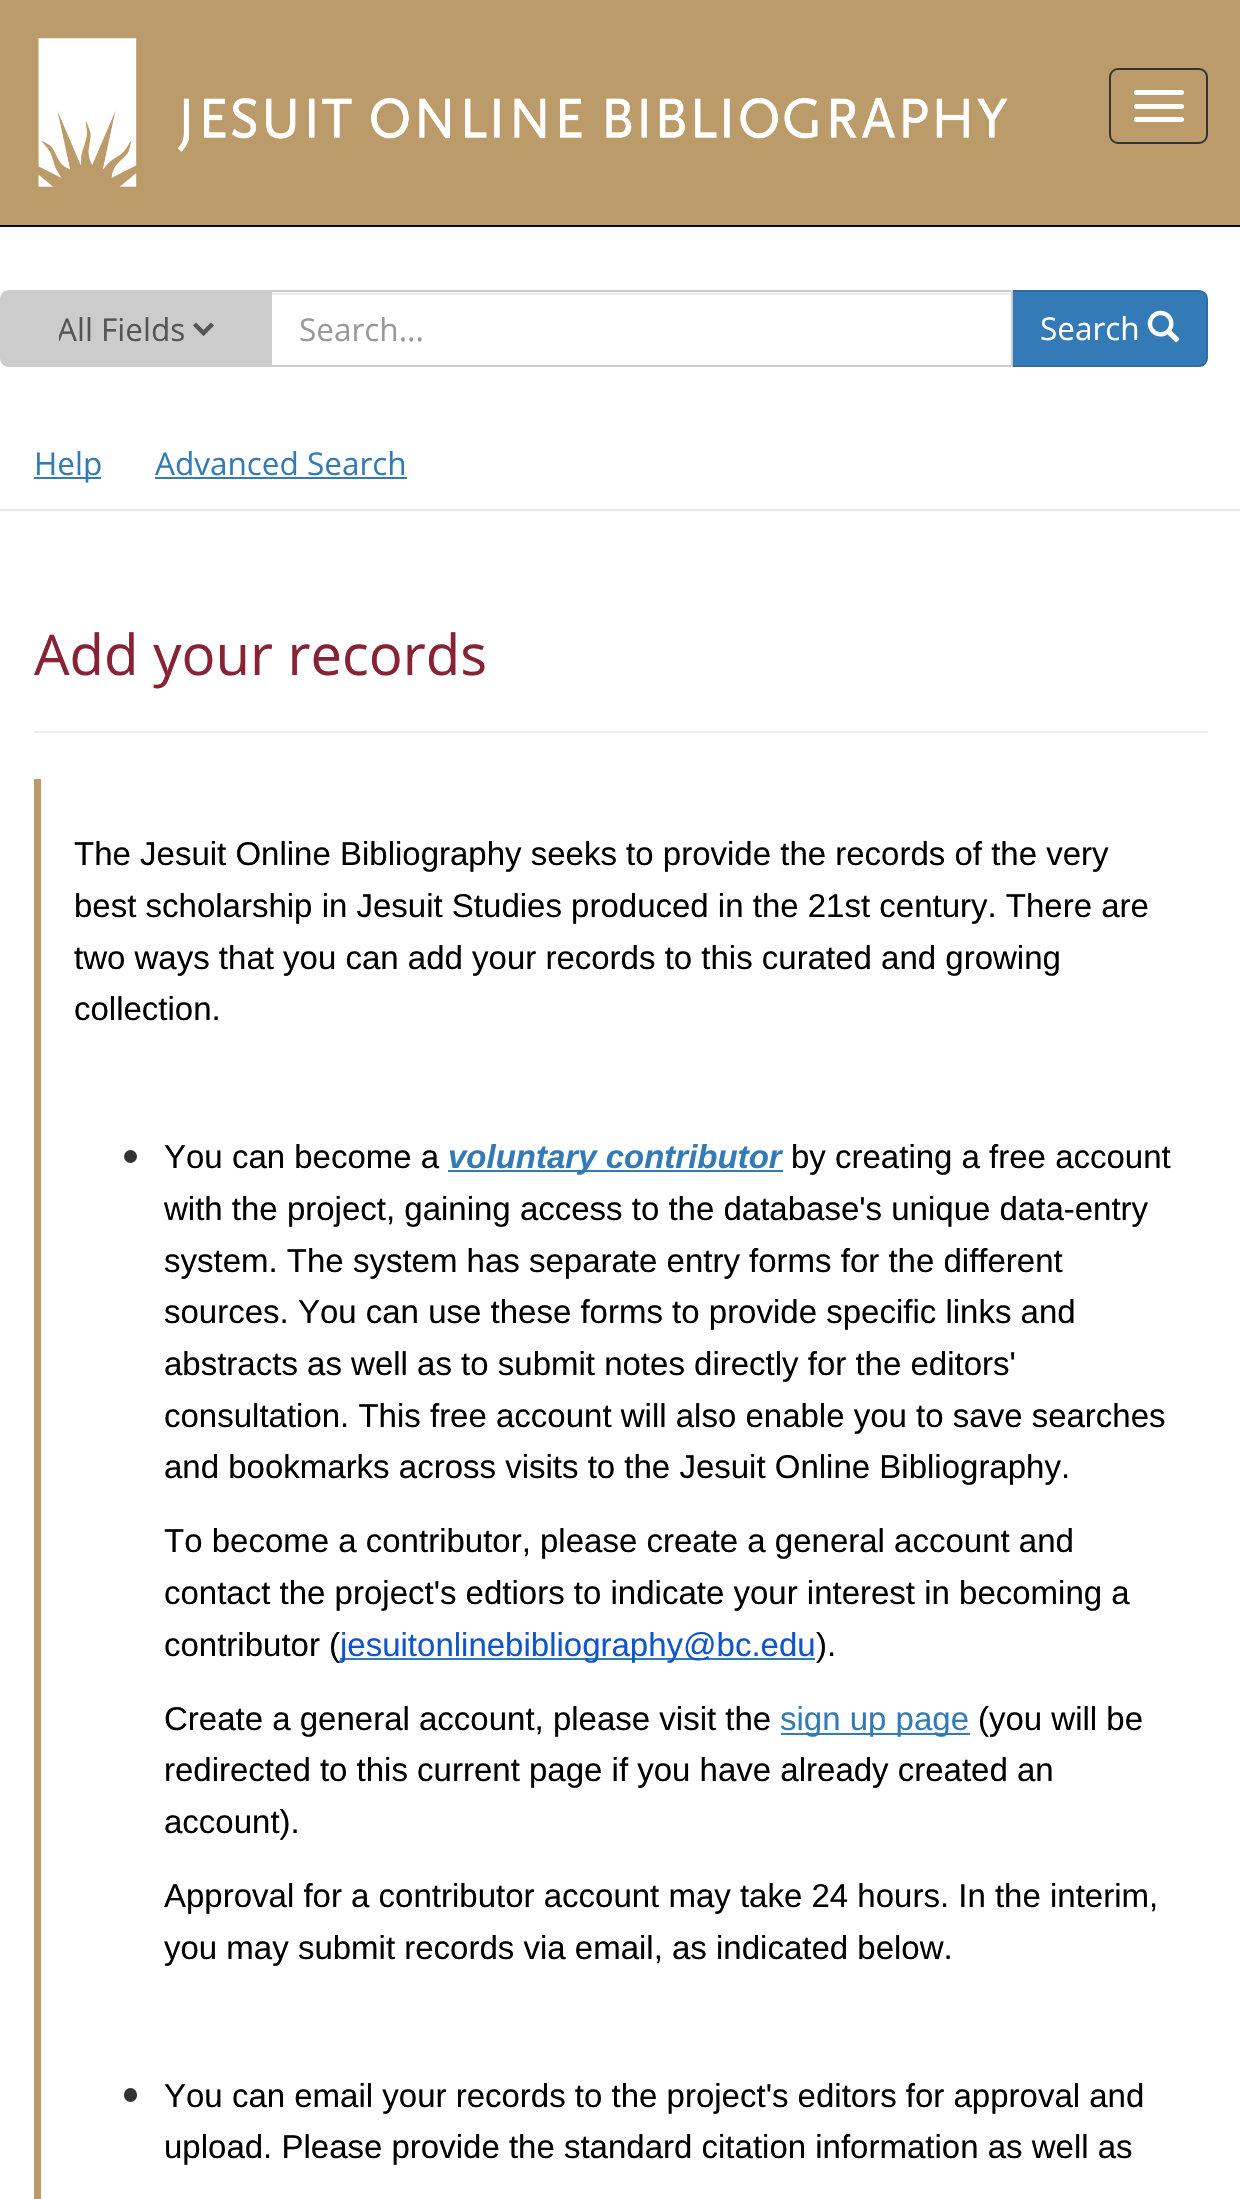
#include "include/core/SkBlurTypes.h"
#include "include/core/SkCanvas.h"
#include "include/core/SkData.h"
#include "include/core/SkFont.h"
#include "include/core/SkFontMgr.h"
#include "include/core/SkImage.h"
#include "include/core/SkMaskFilter.h"
#include "include/core/SkPaint.h"
#include "include/core/SkPathBuilder.h"
#include "include/core/SkTextBlob.h"
#include "include/effects/SkDashPathEffect.h"
#include "include/effects/SkGradientShader.h"
#include "include/utils/SkParsePath.h"

extern sk_sp<SkFontMgr> fontMgr;

void draw(SkCanvas* canvas) {
    SkPaint p;
    p.setAntiAlias(true);
    auto font = [&](const char* family, int weight, float size, bool italic = false) {
        SkFontStyle style(weight, SkFontStyle::kNormal_Width,
            italic ? SkFontStyle::kItalic_Slant : SkFontStyle::kUpright_Slant);
        SkFont result(fontMgr->matchFamilyStyle(family, style), size);
        result.setSubpixel(true);
        return result;
    };
    auto drawPhoto = [&](const char* path, float l, float t, float r, float b) {
        auto image = SkImages::DeferredFromEncodedData(SkData::MakeFromFileName(path));
        canvas->drawImageRect(image, SkRect::MakeLTRB(l, t, r, b), SkSamplingOptions());
    };
    canvas->clear(0xFFFFFFFF);
    p.setColor(0xFF090909);
    canvas->drawRect(SkRect::MakeLTRB(0, 225, 1240, 227), p);
    p.setColor(0xFFBC9B6A);
    canvas->drawRect(SkRect::MakeLTRB(0, 0, 1240, 225), p);
    drawPhoto("media/1.png", 38, 38, 1008, 187);
    p.setStyle(SkPaint::kStroke_Style);
    p.setStrokeWidth(2);
    p.setColor(0xFF333333);
    canvas->drawRoundRect(SkRect::MakeLTRB(1110, 69, 1207, 143), 8, 8, p);
    p.setStyle(SkPaint::kFill_Style);
    p.setColor(0xFFFFFFFF);
    canvas->drawRoundRect(SkRect::MakeLTRB(1134, 90, 1184, 95), 2.5f, 2.5f, p);
    canvas->drawRoundRect(SkRect::MakeLTRB(1134, 104, 1184, 109), 2.5f, 2.5f, p);
    canvas->drawRoundRect(SkRect::MakeLTRB(1134, 117, 1184, 122), 2.5f, 2.5f, p);
    p.setColor(0xFFE7E7E7);
    canvas->drawRect(SkRect::MakeLTRB(0, 509, 1240, 511), p);
    p.setColor(0xFFCCCCCC);
    canvas->drawPath(SkPathBuilder().moveTo(9, 290).lineTo(270, 290).lineTo(270, 367).lineTo(9, 367).cubicTo(4, 367, 0, 363, 0, 358).lineTo(0, 299).cubicTo(0, 294, 4, 290, 9, 290).close().detach(), p);
    p.setStyle(SkPaint::kStroke_Style);
    p.setStrokeWidth(4.5f);
    p.setColor(0xFF555555);
    canvas->drawPath(SkPathBuilder().moveTo(194.5f, 324).lineTo(203.5f, 333).lineTo(212.5f, 324).detach(), p);
    canvas->save();
    canvas->clipRect(SkRect::MakeLTRB(59, 306, 187, 353));
    auto font1 = font("Open Sans", 400, 31.5f);
    p.setStyle(SkPaint::kFill_Style);
    canvas->drawString("All Fields", 57, 341, font1, p);
    canvas->restore();
    p.setColor(0xFF337AB7);
    canvas->drawPath(SkPathBuilder().moveTo(1011, 291).lineTo(1199, 291).cubicTo(1203.5f, 291, 1207, 294.5f, 1207, 299).lineTo(1207, 358).cubicTo(1207, 362.5f, 1203.5f, 366, 1199, 366).lineTo(1011, 366).close().detach(), p);
    p.setStyle(SkPaint::kStroke_Style);
    p.setStrokeWidth(2);
    p.setColor(0xFF2E6DA4);
    canvas->drawPath(SkPathBuilder().moveTo(1011, 291).lineTo(1199, 291).cubicTo(1203.5f, 291, 1207, 294.5f, 1207, 299).lineTo(1207, 358).cubicTo(1207, 362.5f, 1203.5f, 366, 1199, 366).lineTo(1011, 366).close().detach(), p);
    p.setStyle(SkPaint::kFill_Style);
    p.setColor(0xFFFFFFFF);
    canvas->drawRect(SkRect::MakeLTRB(1010, 292, 1011, 365), p);
    p.setColor(0xFFECECEC);
    canvas->drawRect(SkRect::MakeLTRB(272, 293, 1010, 295), p);
    p.setStyle(SkPaint::kStroke_Style);
    p.setColor(0xFFCCCCCC);
    canvas->drawRect(SkRect::MakeLTRB(271, 291, 1012, 366), p);
    p.setStyle(SkPaint::kFill_Style);
    p.setColor(0xFF999999);
    canvas->drawString("Search...", 299, 341, font1, p);
    p.setColor(0xFFFFFFFF);
    canvas->drawString("Search", 1040, 340, font1, p);
    drawPhoto("media/2.png", 1147, 310, 1180, 343);
    p.setColor(0xFF337AB7);
    canvas->drawRect(SkRect::MakeLTRB(34, 477, 101, 479), p);
    canvas->drawString("Help", 34, 475, font1, p);
    canvas->drawString("Advanced Search", 155, 475, font1, p);
    canvas->drawRect(SkRect::MakeLTRB(155, 477, 407, 479), p);
    auto font2 = font("Open Sans", 400, 56.25f);
    p.setColor(0xFF872334);
    canvas->drawString("Add your records", 34, 675, font2, p);
    p.setColor(0xFFEEEEEE);
    canvas->drawRect(SkRect::MakeLTRB(34, 731, 1208, 733), p);
    p.setColor(0xFFBC9B6A);
    canvas->drawRect(SkRect::MakeLTRB(34, 779, 41, 2199), p);
    auto font3 = font("Liberation Sans", 400, 33);
    p.setColor(0xFF000000);
    {
        const struct { const char* s; float x, y; } items[] = {
            {"The Jesuit Online Bibliography seeks to provide the records of the very", 74, 865},
            {"best scholarship in Jesuit Studies produced in the 21st century. There are", 74, 917},
            {"two ways that you can add your records to this curated and growing", 74, 969},
            {"collection.", 74, 1020},
        };
        for (auto [s, x, y] : items) {
            canvas->drawString(s, x, y, font3, p);
        }
    }
    p.setColor(0xFF333333);
    canvas->drawCircle(130.5f, 1156.5f, 6.5f, p);
    p.setColor(0xFF000000);
    canvas->drawString("You can become a", 164, 1168, font3, p);
    p.setColor(0xFF337AB7);
    canvas->drawRect(SkRect::MakeLTRB(448, 1170, 783, 1172), p);
    auto font4 = font("Liberation Sans", 700, 33, true);
    canvas->drawString("voluntary contributor", 448, 1168, font4, p);
    p.setColor(0xFF000000);
    {
        const struct { const char* s; float x, y; } items[] = {
            {"by creating a free account", 791, 1168},
            {"with the project, gaining access to the database's unique data-entry", 164, 1220},
            {"system. The system has separate entry forms for the different", 164, 1272},
            {"sources. You can use these forms to provide specific links and", 164, 1323},
            {"abstracts as well as to submit notes directly for the editors'", 164, 1375},
            {"consultation. This free account will also enable you to save searches", 164, 1427},
            {"and bookmarks across visits to the Jesuit Online Bibliography.", 164, 1478},
            {"To become a contributor, please create a general account and", 164, 1552},
            {"contact the project's edtiors to indicate your interest in becoming a", 164, 1604},
            {"contributor (", 164, 1656},
        };
        for (auto [s, x, y] : items) {
            canvas->drawString(s, x, y, font3, p);
        }
    }
    p.setColor(0xFF337AB7);
    canvas->drawRect(SkRect::MakeLTRB(340, 1658, 815, 1660), p);
    p.setColor(0xFF1155CC);
    canvas->drawString("jesuitonlinebibliography@bc.edu", 340, 1656, font3, p);
    p.setColor(0xFF000000);
    canvas->drawString(").", 816, 1656, font3, p);
    canvas->drawString("Create a general account, please visit the", 164, 1730, font3, p);
    p.setColor(0xFF337AB7);
    canvas->drawRect(SkRect::MakeLTRB(781, 1733, 970, 1735), p);
    canvas->drawString("sign up page", 780, 1730, font3, p);
    p.setColor(0xFF000000);
    {
        const struct { const char* s; float x, y; } items[] = {
            {"(you will be", 978, 1730},
            {"redirected to this current page if you have already created an", 164, 1781},
            {"account).", 164, 1833},
            {"Approval for a contributor account may take 24 hours. In the interim,", 164, 1907},
            {"you may submit records via email, as indicated below.", 164, 1959},
        };
        for (auto [s, x, y] : items) {
            canvas->drawString(s, x, y, font3, p);
        }
    }
    p.setColor(0xFF333333);
    canvas->drawRoundRect(SkRect::MakeLTRB(124, 2088, 137, 2102), 6.5f, 6.5f, p);
    p.setColor(0xFF000000);
    canvas->drawString("You can email your records to the project's editors for approval and", 164, 2107, font3, p);
    canvas->drawString("upload. Please provide the standard citation information as well as", 164, 2158, font3, p);
}
